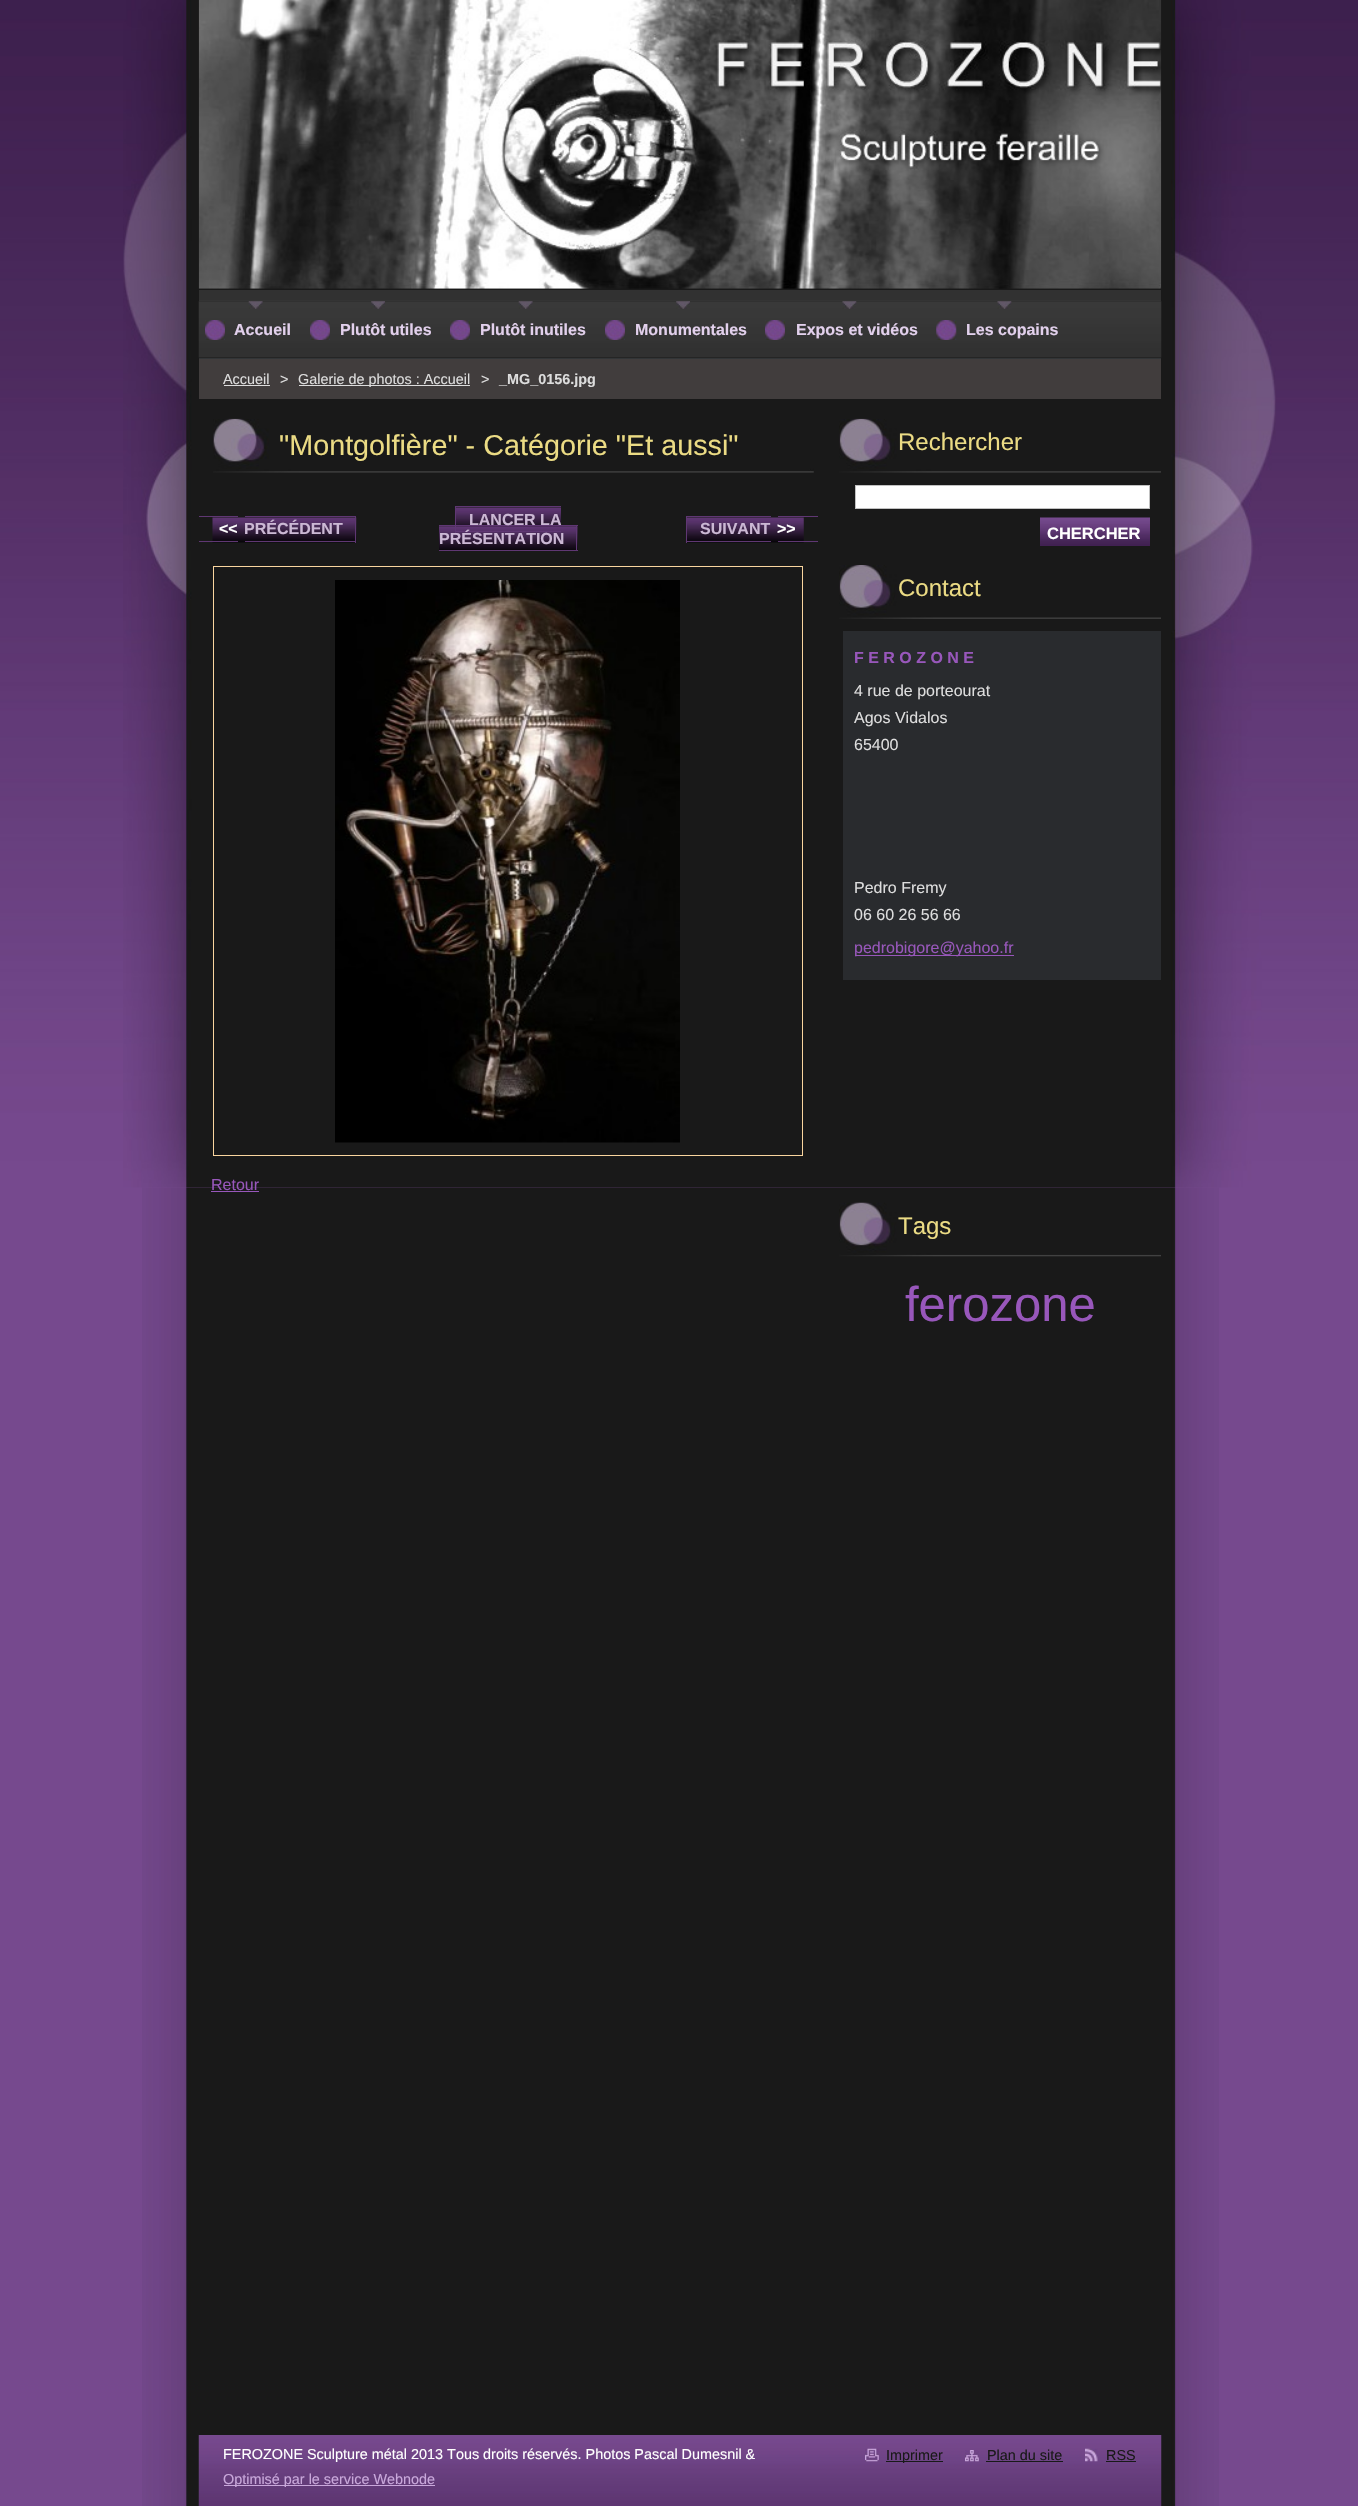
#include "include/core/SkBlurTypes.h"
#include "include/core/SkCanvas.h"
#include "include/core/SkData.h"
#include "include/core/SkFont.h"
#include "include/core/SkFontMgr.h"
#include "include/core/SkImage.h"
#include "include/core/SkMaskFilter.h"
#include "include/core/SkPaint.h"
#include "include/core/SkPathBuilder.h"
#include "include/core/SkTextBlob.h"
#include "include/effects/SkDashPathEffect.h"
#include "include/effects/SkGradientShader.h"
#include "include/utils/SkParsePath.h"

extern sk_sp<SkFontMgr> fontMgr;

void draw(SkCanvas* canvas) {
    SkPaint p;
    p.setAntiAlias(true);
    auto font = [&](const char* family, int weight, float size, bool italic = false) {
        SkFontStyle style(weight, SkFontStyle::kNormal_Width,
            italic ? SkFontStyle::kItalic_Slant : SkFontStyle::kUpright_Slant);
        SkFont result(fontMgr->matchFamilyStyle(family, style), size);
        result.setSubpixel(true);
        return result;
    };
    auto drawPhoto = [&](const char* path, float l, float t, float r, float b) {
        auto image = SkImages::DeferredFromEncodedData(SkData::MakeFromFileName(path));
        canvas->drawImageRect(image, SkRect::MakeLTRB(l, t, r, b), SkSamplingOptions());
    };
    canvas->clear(0xFF76498E);
    drawPhoto("media/1.png", 142, 1187, 1219, 2506);
    drawPhoto("media/2.png", 0, 0, 1358, 1188);
    drawPhoto("media/3.png", 123, 0, 1276, 1188);
    p.setColor(0xFF313131);
    canvas->drawRect(SkRect::MakeLTRB(199, 290, 1161, 300), p);
    drawPhoto("media/4.png", 198, 0, 1162, 289);
    drawPhoto("media/5.png", 198, 301, 1162, 358);
    p.setColor(0xFF343434);
    canvas->drawRect(SkRect::MakeLTRB(199, 300, 1161, 301), p);
    p.setColor(0xFF323537);
    canvas->drawRect(SkRect::MakeLTRB(199, 358, 1161, 359), p);
    drawPhoto("media/6.png", 205, 320, 225, 340);
    drawPhoto("media/7.png", 248, 301, 263, 309);
    auto font1 = font("Liberation Sans", 700, 16);
    p.setColor(0xFFE2D0EC);
    canvas->drawString("Accueil", 234, 335, font1, p);
    drawPhoto("media/6.png", 310, 320, 330, 340);
    drawPhoto("media/8.png", 371, 301, 385, 309);
    canvas->drawString("Plutôt utiles", 340, 335, font1, p);
    drawPhoto("media/9.png", 450, 320, 470, 340);
    drawPhoto("media/10.png", 518, 301, 533, 309);
    canvas->drawString("Plutôt inutiles", 480, 335, font1, p);
    drawPhoto("media/6.png", 605, 320, 625, 340);
    drawPhoto("media/8.png", 676, 301, 690, 309);
    canvas->drawString("Monumentales", 635, 335, font1, p);
    drawPhoto("media/11.png", 765, 320, 785, 340);
    drawPhoto("media/12.png", 842, 301, 857, 309);
    canvas->drawString("Expos et vidéos", 796, 335, font1, p);
    drawPhoto("media/13.png", 936, 320, 957, 340);
    drawPhoto("media/14.png", 997, 301, 1012, 309);
    canvas->drawString("Les copains", 966, 335, font1, p);
    p.setColor(0xFF413D3D);
    canvas->drawRect(SkRect::MakeLTRB(199, 359, 1161, 399), p);
    auto font2 = font("Liberation Sans", 400, 14.4f);
    p.setColor(0xFFDDDDDD);
    canvas->drawString("Accueil", 223, 384, font2, p);
    canvas->drawRect(SkRect::MakeLTRB(224, 385, 270, 386), p);
    canvas->drawString(">", 280, 384, font2, p);
    canvas->drawRect(SkRect::MakeLTRB(299, 385, 470, 386), p);
    canvas->drawString("Galerie de photos : Accueil", 298, 384, font2, p);
    canvas->drawString(">", 481, 384, font2, p);
    auto font3 = font("Liberation Sans", 700, 14.4f);
    canvas->drawString("_MG_0156.jpg", 499, 384, font3, p);
    drawPhoto("media/15.png", 213, 418, 814, 473);
    auto font4 = font("Liberation Sans", 400, 28.75f);
    p.setColor(0xFFEBDB84);
    canvas->drawString("\"Montgolfière\" - Catégorie \"Et aussi\"", 279, 455, font4, p);
    drawPhoto("media/16.png", 212, 517, 357, 543);
    {
        const struct { float l, t, r, b; SkColor color; } items[] = {
            {199, 516, 238, 517, 0xFF5F3773},
            {199, 541, 238, 542, 0xFF5F3773},
            {245, 516, 356, 517, 0xFF5F3773},
            {355, 516, 356, 543, 0xFF5F3773},
            {245, 541, 356, 542, 0xFF5F3773},
        };
        for (auto [l, t, r, b, color] : items) {
            p.setColor(color);
            canvas->drawRect(SkRect::MakeLTRB(l, t, r, b), p);
        }
    }
    p.setColor(0xFFFFFFFF);
    canvas->drawString("<<", 219, 534, font1, p);
    p.setColor(0xFFCBB8D4);
    canvas->drawString("PRÉCÉDENT", 244, 534, font1, p);
    drawPhoto("media/17.png", 439, 507, 578, 550);
    {
        const struct { float l, t, r, b; SkColor color; } items[] = {
            {455, 506, 561, 507, 0xFF5F3773},
            {455, 531, 561, 532, 0xFF5F3773},
            {455, 506, 456, 533, 0xFF5F3773},
            {439, 525, 578, 526, 0xFF5F3773},
        };
        for (auto [l, t, r, b, color] : items) {
            p.setColor(color);
            canvas->drawRect(SkRect::MakeLTRB(l, t, r, b), p);
        }
    }
    p.setColor(0xFFCBB8D4);
    canvas->drawString("LANCER LA", 469, 525, font1, p);
    canvas->drawString("PRÉSENTATION", 439, 544, font1, p);
    p.setColor(0xFF5F3773);
    canvas->drawRect(SkRect::MakeLTRB(576, 525, 577, 551), p);
    canvas->drawRect(SkRect::MakeLTRB(439, 550, 578, 551), p);
    drawPhoto("media/18.png", 687, 517, 804, 543);
    {
        const struct { float l, t, r, b; SkColor color; } items[] = {
            {686, 516, 771, 517, 0xFF5F3773},
            {686, 541, 771, 542, 0xFF5F3773},
            {686, 516, 687, 543, 0xFF5F3773},
            {778, 516, 818, 517, 0xFF5F3773},
            {778, 541, 818, 542, 0xFF5F3773},
        };
        for (auto [l, t, r, b, color] : items) {
            p.setColor(color);
            canvas->drawRect(SkRect::MakeLTRB(l, t, r, b), p);
        }
    }
    p.setColor(0xFFCBB8D4);
    canvas->drawString("SUIVANT", 700, 534, font1, p);
    p.setColor(0xFFFFFFFF);
    canvas->drawString(">>", 777, 534, font1, p);
    p.setStyle(SkPaint::kStroke_Style);
    p.setStrokeWidth(1);
    p.setColor(0xFFF9D59F);
    canvas->drawRect(SkRect::MakeLTRB(213.5f, 566.5f, 802.5f, 1155.5f), p);
    drawPhoto("media/19.png", 335, 580, 680, 1143);
    auto font5 = font("Liberation Sans", 400, 16);
    p.setStyle(SkPaint::kFill_Style);
    p.setColor(0xFF9857BB);
    canvas->drawString("Retour", 211, 1190, font5, p);
    canvas->drawRect(SkRect::MakeLTRB(211, 1191, 259, 1192), p);
    drawPhoto("media/20.png", 839, 418, 1161, 473);
    auto font6 = font("Liberation Sans", 400, 24);
    p.setColor(0xFFEBDB84);
    canvas->drawString("Rechercher", 898, 450, font6, p);
    p.setColor(0xFFFFFFFF);
    canvas->drawRect(SkRect::MakeLTRB(855.5f, 485.5f, 1149.5f, 508.5f), p);
    p.setStyle(SkPaint::kStroke_Style);
    p.setColor(0xFFC1C1C1);
    canvas->drawRect(SkRect::MakeLTRB(855.5f, 485.5f, 1149.5f, 508.5f), p);
    drawPhoto("media/21.png", 1040, 517, 1150, 546);
    auto font7 = font("Liberation Sans", 700, 16.5f);
    p.setStyle(SkPaint::kFill_Style);
    p.setColor(0xFFFFFFFF);
    canvas->drawString("CHERCHER", 1047, 539, font7, p);
    drawPhoto("media/22.png", 839, 565, 1161, 619);
    p.setColor(0xFFEBDB84);
    canvas->drawString("Contact", 898, 596, font6, p);
    p.setColor(0xFF292B2E);
    canvas->drawRect(SkRect::MakeLTRB(843, 631, 1161, 980), p);
    p.setColor(0xFF9857BB);
    canvas->drawString("F E R O Z O N E", 854, 663, font1, p);
    p.setColor(0xFFDDDDDD);
    {
        const struct { const char* s; float x, y; } items[] = {
            {"4 rue de porteourat", 854, 696},
            {"Agos Vidalos", 854, 723},
            {"65400", 854, 750},
            {"Pedro Fremy", 854, 893},
            {"06 60 26 56 66", 854, 920},
        };
        for (auto [s, x, y] : items) {
            canvas->drawString(s, x, y, font5, p);
        }
    }
    p.setColor(0xFF9857BB);
    canvas->drawRect(SkRect::MakeLTRB(855, 955, 1014, 956), p);
    canvas->drawString("pedrobigore@yahoo.fr", 854, 953, font5, p);
    drawPhoto("media/23.png", 839, 1202, 1161, 1257);
    p.setColor(0xFFEBDB84);
    canvas->drawString("Tags", 898, 1234, font6, p);
    auto font8 = font("Liberation Sans", 400, 49);
    p.setColor(0xFF9857BB);
    canvas->drawString("ferozone", 905, 1321, font8, p);
    drawPhoto("media/24.png", 198, 2435, 1162, 2506);
    p.setColor(0xFFFFFFFF);
    canvas->drawString("FEROZONE Sculpture métal 2013 Tous droits réservés. Photos Pascal Dumesnil &", 223, 2459, font2, p);
    p.setColor(0xFFC9A8DB);
    canvas->drawRect(SkRect::MakeLTRB(224, 2485, 435, 2486), p);
    canvas->drawString("Optimisé par le service Webnode", 223, 2484, font2, p);
    drawPhoto("media/25.png", 865, 2448, 879, 2462);
    p.setColor(0xFF191919);
    canvas->drawRect(SkRect::MakeLTRB(886, 2461, 943, 2462), p);
    canvas->drawString("Imprimer", 886, 2460, font2, p);
    drawPhoto("media/26.png", 965, 2450, 979, 2462);
    canvas->drawString("Plan du site", 987, 2460, font2, p);
    canvas->drawRect(SkRect::MakeLTRB(986, 2461, 1063, 2462), p);
    drawPhoto("media/27.png", 1085, 2448, 1098, 2462);
    canvas->drawString("RSS", 1106, 2460, font2, p);
    canvas->drawRect(SkRect::MakeLTRB(1106, 2461, 1136, 2462), p);
}
